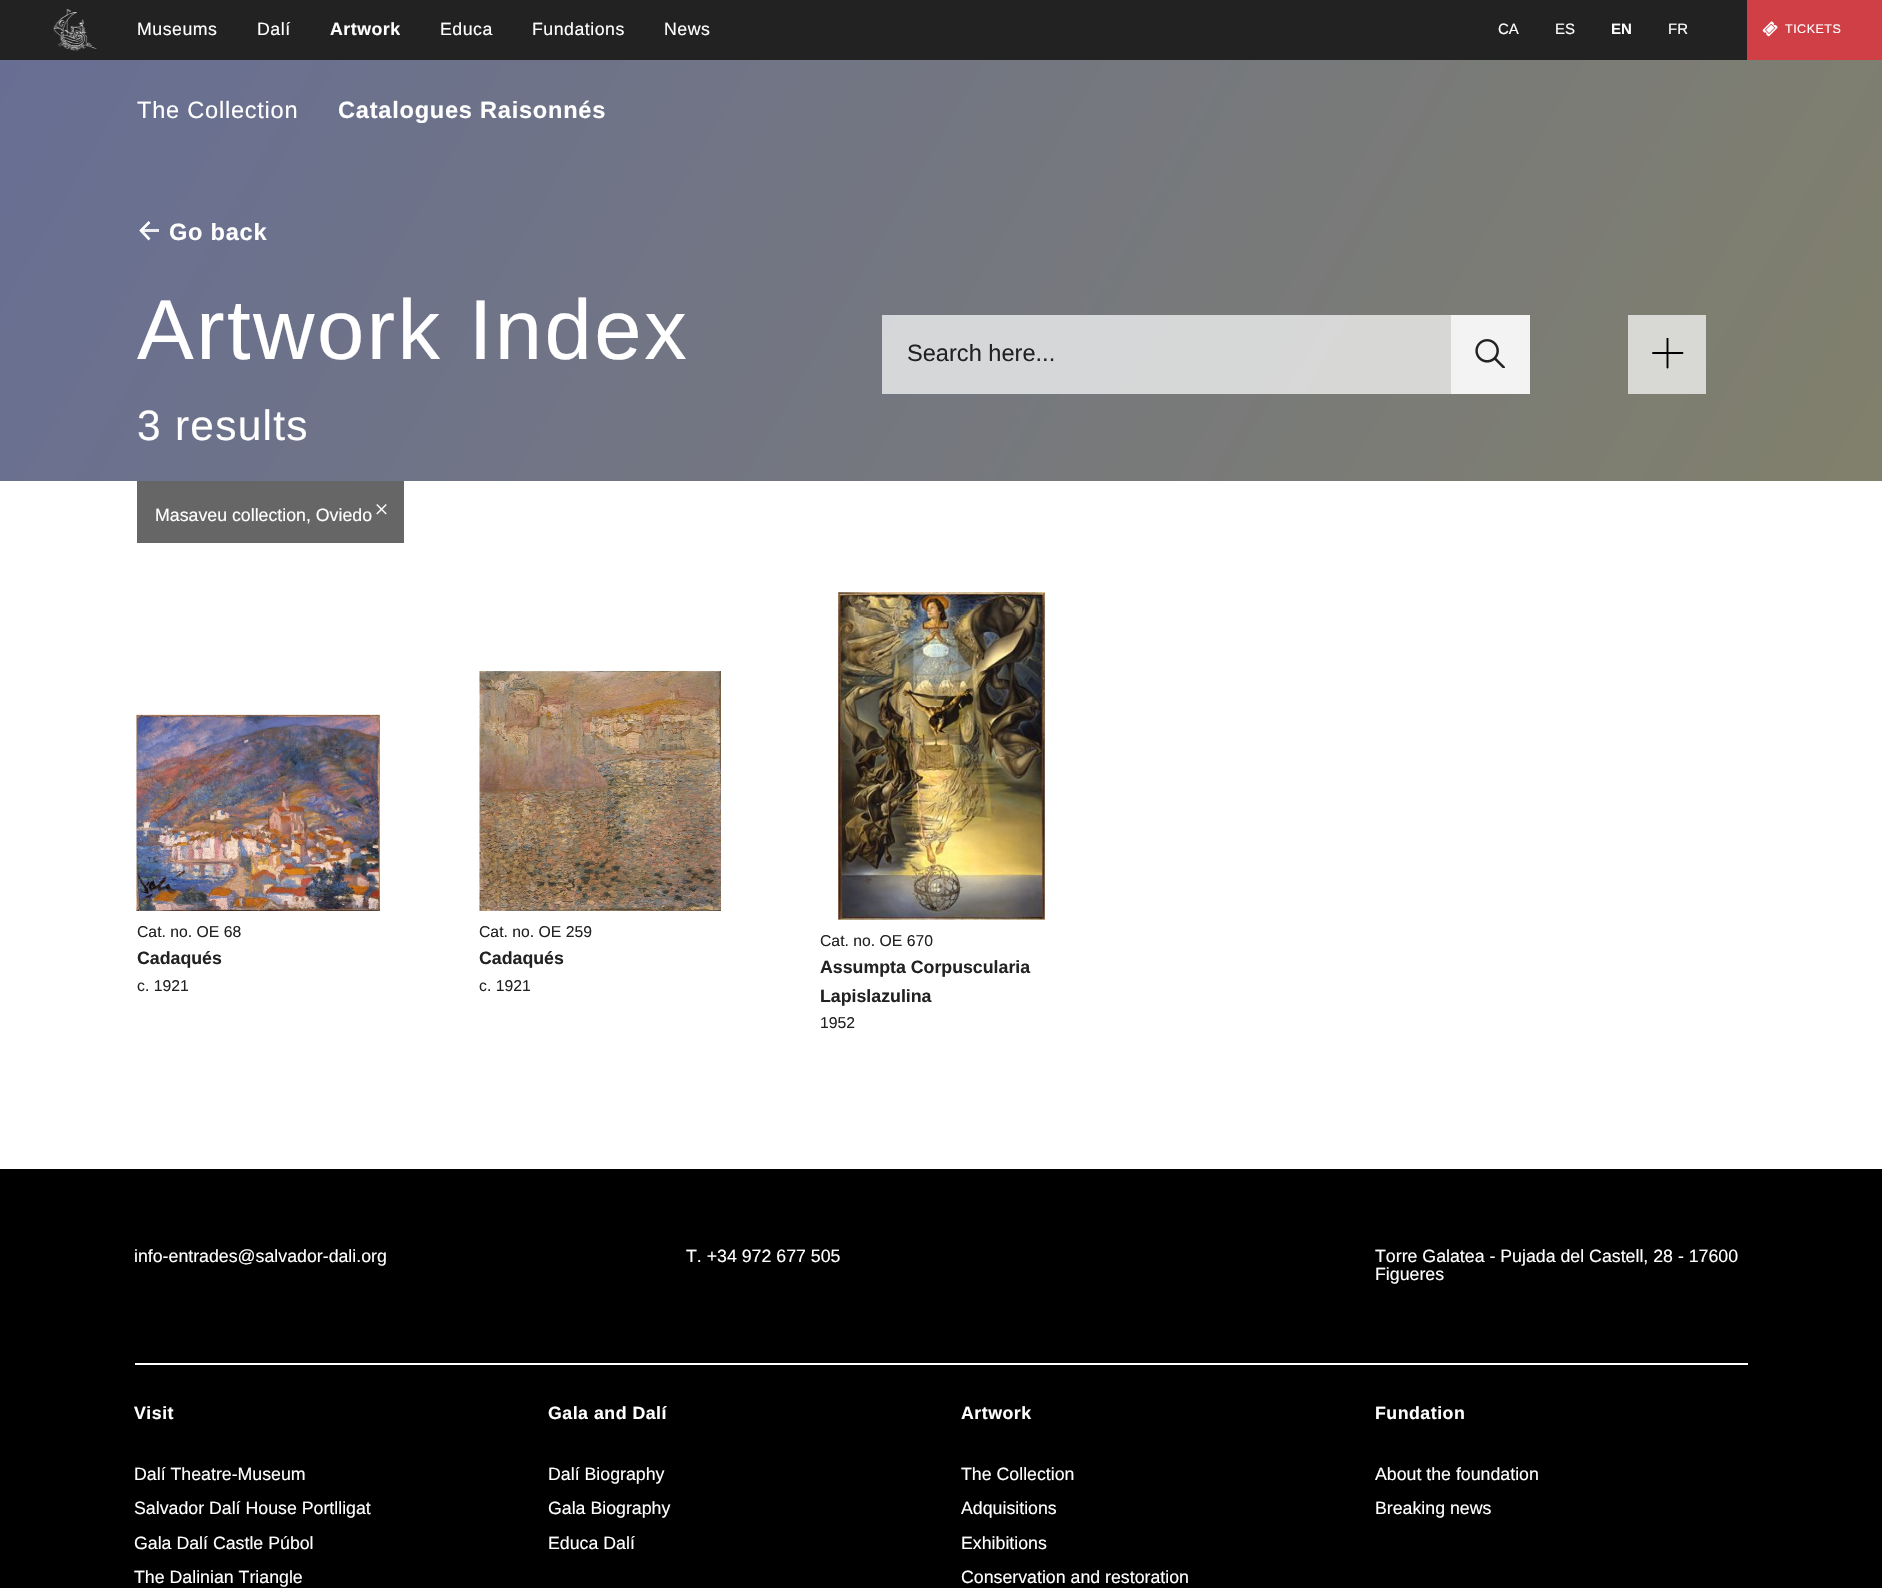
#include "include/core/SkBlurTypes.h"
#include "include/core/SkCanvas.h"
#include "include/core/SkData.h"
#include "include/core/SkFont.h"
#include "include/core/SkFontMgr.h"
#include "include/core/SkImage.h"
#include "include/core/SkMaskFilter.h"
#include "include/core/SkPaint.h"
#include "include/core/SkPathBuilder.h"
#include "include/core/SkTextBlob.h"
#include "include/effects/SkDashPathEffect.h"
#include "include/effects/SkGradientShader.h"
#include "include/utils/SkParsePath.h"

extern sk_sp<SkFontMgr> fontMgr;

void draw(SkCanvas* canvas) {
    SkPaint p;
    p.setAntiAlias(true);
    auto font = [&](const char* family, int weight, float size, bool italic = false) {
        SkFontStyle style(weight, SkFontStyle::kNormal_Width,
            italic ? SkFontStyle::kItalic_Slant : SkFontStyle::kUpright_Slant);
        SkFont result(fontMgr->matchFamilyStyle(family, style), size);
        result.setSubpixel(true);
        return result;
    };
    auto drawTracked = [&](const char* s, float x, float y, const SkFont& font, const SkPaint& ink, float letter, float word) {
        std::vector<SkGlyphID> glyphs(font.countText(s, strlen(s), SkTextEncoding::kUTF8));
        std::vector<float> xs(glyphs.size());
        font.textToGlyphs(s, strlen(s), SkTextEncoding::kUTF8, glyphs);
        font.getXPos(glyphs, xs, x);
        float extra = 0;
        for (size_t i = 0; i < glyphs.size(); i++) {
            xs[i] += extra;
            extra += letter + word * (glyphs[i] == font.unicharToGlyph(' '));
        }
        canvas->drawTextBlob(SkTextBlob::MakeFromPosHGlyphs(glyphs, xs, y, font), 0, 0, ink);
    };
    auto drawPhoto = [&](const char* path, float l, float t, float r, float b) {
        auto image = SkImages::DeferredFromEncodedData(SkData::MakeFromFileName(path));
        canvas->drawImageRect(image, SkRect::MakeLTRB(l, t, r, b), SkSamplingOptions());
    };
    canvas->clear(0xFFFFFFFF);
    {
        const SkColor colors[] = {0xFF676E94, 0xFF81806C};
        const float stops[] = {0, 1};
        const SkPoint ends[] = {{131, -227}, {1752, 708}};
        p.setShader(SkGradientShader::MakeLinear(ends, colors, stops, 2, SkTileMode::kClamp));
        p.setAlpha(255);
    }
    canvas->drawRect(SkRect::MakeLTRB(0, 60, 1882, 481), p);
    {
        const SkColor colors[] = {0xFFD1D4DF, 0xFFD9D9D3};
        const float stops[] = {0, 1};
        const SkPoint ends[] = {{131, -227}, {1752, 708}};
        p.setShader(SkGradientShader::MakeLinear(ends, colors, stops, 2, SkTileMode::kClamp));
        p.setAlpha(255);
    }
    canvas->drawRect(SkRect::MakeLTRB(882, 315, 1451, 394), p);
    p.setShader(nullptr);
    p.setColor(0xFF222222);
    canvas->drawRect(SkRect::MakeLTRB(0, 0, 1747, 60), p);
    drawPhoto("media/1.png", 53, 9, 97, 51);
    auto font1 = font("Liberation Sans", 400, 17.75f);
    p.setColor(0xFFFFFFFF);
    drawTracked("Museums", 137, 35, font1, p, 0.5f, 0);
    drawTracked("Dalí", 257, 35, font1, p, 0.5f, 0);
    auto font2 = font("Liberation Sans", 700, 17.75f);
    drawTracked("Artwork", 330, 35, font2, p, 0.5f, 0);
    {
        const struct { const char* s; float x, y; } items[] = {
            {"Educa", 440, 35},
            {"Fundations", 532, 35},
            {"News", 664, 35},
        };
        for (auto [s, x, y] : items) {
            drawTracked(s, x, y, font1, p, 0.5f, 0);
        }
    }
    auto font3 = font("Liberation Sans", 400, 15);
    canvas->drawString("CA", 1498, 34, font3, p);
    canvas->drawString("ES", 1555, 34, font3, p);
    auto font4 = font("Liberation Sans", 700, 15);
    canvas->drawString("EN", 1611, 34, font4, p);
    canvas->drawString("FR", 1668, 34, font3, p);
    p.setColor(0xFFD03F46);
    canvas->drawRect(SkRect::MakeLTRB(1747, 0, 1882, 60), p);
    drawPhoto("media/2.png", 1762, 21, 1778, 37);
    auto font5 = font("Liberation Sans", 400, 12.5f);
    p.setColor(0xFFFFFFFF);
    drawTracked("TICKETS", 1785, 33, font5, p, 0.5f, 0);
    auto font6 = font("Liberation Sans", 400, 23.6f);
    drawTracked("The Collection", 137, 118, font6, p, 0.75f, 0);
    auto font7 = font("Liberation Sans", 700, 23.6f);
    drawTracked("Catalogues Raisonnés", 338, 118, font7, p, 0.75f, 0);
    p.setColor(0xFFEBECF0);
    canvas->drawRect(SkRect::MakeLTRB(142, 229, 159, 232), p);
    p.setStyle(SkPaint::kStroke_Style);
    p.setStrokeWidth(2.6f);
    p.setColor(0xFFFFFFFF);
    canvas->drawPath(SkPathBuilder().moveTo(149.5f, 239.5f).lineTo(141, 230.5f).lineTo(149.5f, 222).detach(), p);
    p.setStyle(SkPaint::kFill_Style);
    drawTracked("Go back", 169, 240, font7, p, 0.75f, 0);
    auto font8 = font("Liberation Sans", 400, 85);
    drawTracked("Artwork Index", 137, 359, font8, p, 2.5f, 0);
    p.setColor(0xFF222222);
    canvas->drawString("Search here...", 907, 361, font6, p);
    p.setColor(0xFFF3F3F3);
    canvas->drawRect(SkRect::MakeLTRB(1451, 315, 1530, 394), p);
    drawPhoto("media/3.png", 1475, 339, 1505, 368);
    p.setColor(0xFFD8D8D5);
    canvas->drawRect(SkRect::MakeLTRB(1628, 315, 1706, 394), p);
    canvas->save();
    canvas->clipRect(SkRect::MakeLTRB(1652, 338, 1684, 369));
    p.setStyle(SkPaint::kStroke_Style);
    p.setStrokeWidth(1.9f);
    p.setStrokeCap(SkPaint::kRound_Cap);
    p.setStrokeJoin(SkPaint::kRound_Join);
    p.setColor(0xFF000000);
    canvas->drawPath(SkPathBuilder().moveTo(1667.5f, 367.5f).lineTo(1667.5f, 338).detach(), p);
    canvas->restore();
    canvas->drawPath(SkPathBuilder().moveTo(1682.5f, 353).lineTo(1653, 353).detach(), p);
    auto font9 = font("Liberation Sans", 400, 42.5f);
    p.setStyle(SkPaint::kFill_Style);
    p.setColor(0xFFFFFFFF);
    drawTracked("3 results", 137, 440, font9, p, 1.25f, 0);
    p.setColor(0xFF666666);
    canvas->drawRect(SkRect::MakeLTRB(137, 481, 404, 543), p);
    p.setColor(0xFFFFFFFF);
    canvas->drawString("Masaveu collection, Oviedo", 155, 521, font1, p);
    drawPhoto("media/4.png", 376, 504, 387, 515);
    drawPhoto("media/5.png", 136, 714, 380, 911);
    auto font10 = font("Liberation Sans", 400, 15.75f);
    p.setColor(0xFF222222);
    canvas->drawString("Cat. no. OE 68", 137, 937, font10, p);
    canvas->drawString("Cadaqués", 137, 964, font2, p);
    canvas->drawString("c. 1921", 137, 991, font10, p);
    drawPhoto("media/6.png", 479, 671, 721, 911);
    canvas->drawString("Cat. no. OE 259", 479, 937, font10, p);
    canvas->drawString("Cadaqués", 479, 964, font2, p);
    canvas->drawString("c. 1921", 479, 991, font10, p);
    drawPhoto("media/7.png", 838, 592, 1045, 920);
    canvas->drawString("Cat. no. OE 670", 820, 946, font10, p);
    canvas->drawString("Assumpta Corpuscularia", 820, 973, font2, p);
    canvas->drawString("Lapislazulina", 820, 1002, font2, p);
    canvas->drawString("1952", 820, 1028, font10, p);
    p.setColor(0xFF000000);
    canvas->drawRect(SkRect::MakeLTRB(0, 1169, 1882, 1588), p);
    p.setColor(0xFFFFFFFF);
    canvas->drawRect(SkRect::MakeLTRB(135, 1363, 1748, 1365), p);
    {
        const struct { const char* s; float x, y; } items[] = {
            {"info-entrades@salvador-dali.org", 134, 1262},
            {"T. +34 972 677 505", 686, 1262},
            {"Torre Galatea - Pujada del Castell, 28 - 17600", 1375, 1262},
            {"Figueres", 1375, 1280},
        };
        for (auto [s, x, y] : items) {
            canvas->drawString(s, x, y, font1, p);
        }
    }
    drawTracked("Visit", 134, 1419, font2, p, 0.5f, 0);
    {
        const struct { const char* s; float x, y; } items[] = {
            {"Dalí Theatre-Museum", 134, 1480},
            {"Salvador Dalí House Portlligat", 134, 1514},
            {"Gala Dalí Castle Púbol", 134, 1549},
            {"The Dalinian Triangle", 134, 1583},
        };
        for (auto [s, x, y] : items) {
            canvas->drawString(s, x, y, font1, p);
        }
    }
    drawTracked("Gala and Dalí", 548, 1419, font2, p, 0.5f, 0);
    {
        const struct { const char* s; float x, y; } items[] = {
            {"Dalí Biography", 548, 1480},
            {"Gala Biography", 548, 1514},
            {"Educa Dalí", 548, 1549},
        };
        for (auto [s, x, y] : items) {
            canvas->drawString(s, x, y, font1, p);
        }
    }
    drawTracked("Artwork", 961, 1419, font2, p, 0.5f, 0);
    {
        const struct { const char* s; float x, y; } items[] = {
            {"The Collection", 961, 1480},
            {"Adquisitions", 961, 1514},
            {"Exhibitions", 961, 1549},
            {"Conservation and restoration", 961, 1583},
        };
        for (auto [s, x, y] : items) {
            canvas->drawString(s, x, y, font1, p);
        }
    }
    drawTracked("Fundation", 1375, 1419, font2, p, 0.5f, 0);
    canvas->drawString("About the foundation", 1375, 1480, font1, p);
    canvas->drawString("Breaking news", 1375, 1514, font1, p);
}
